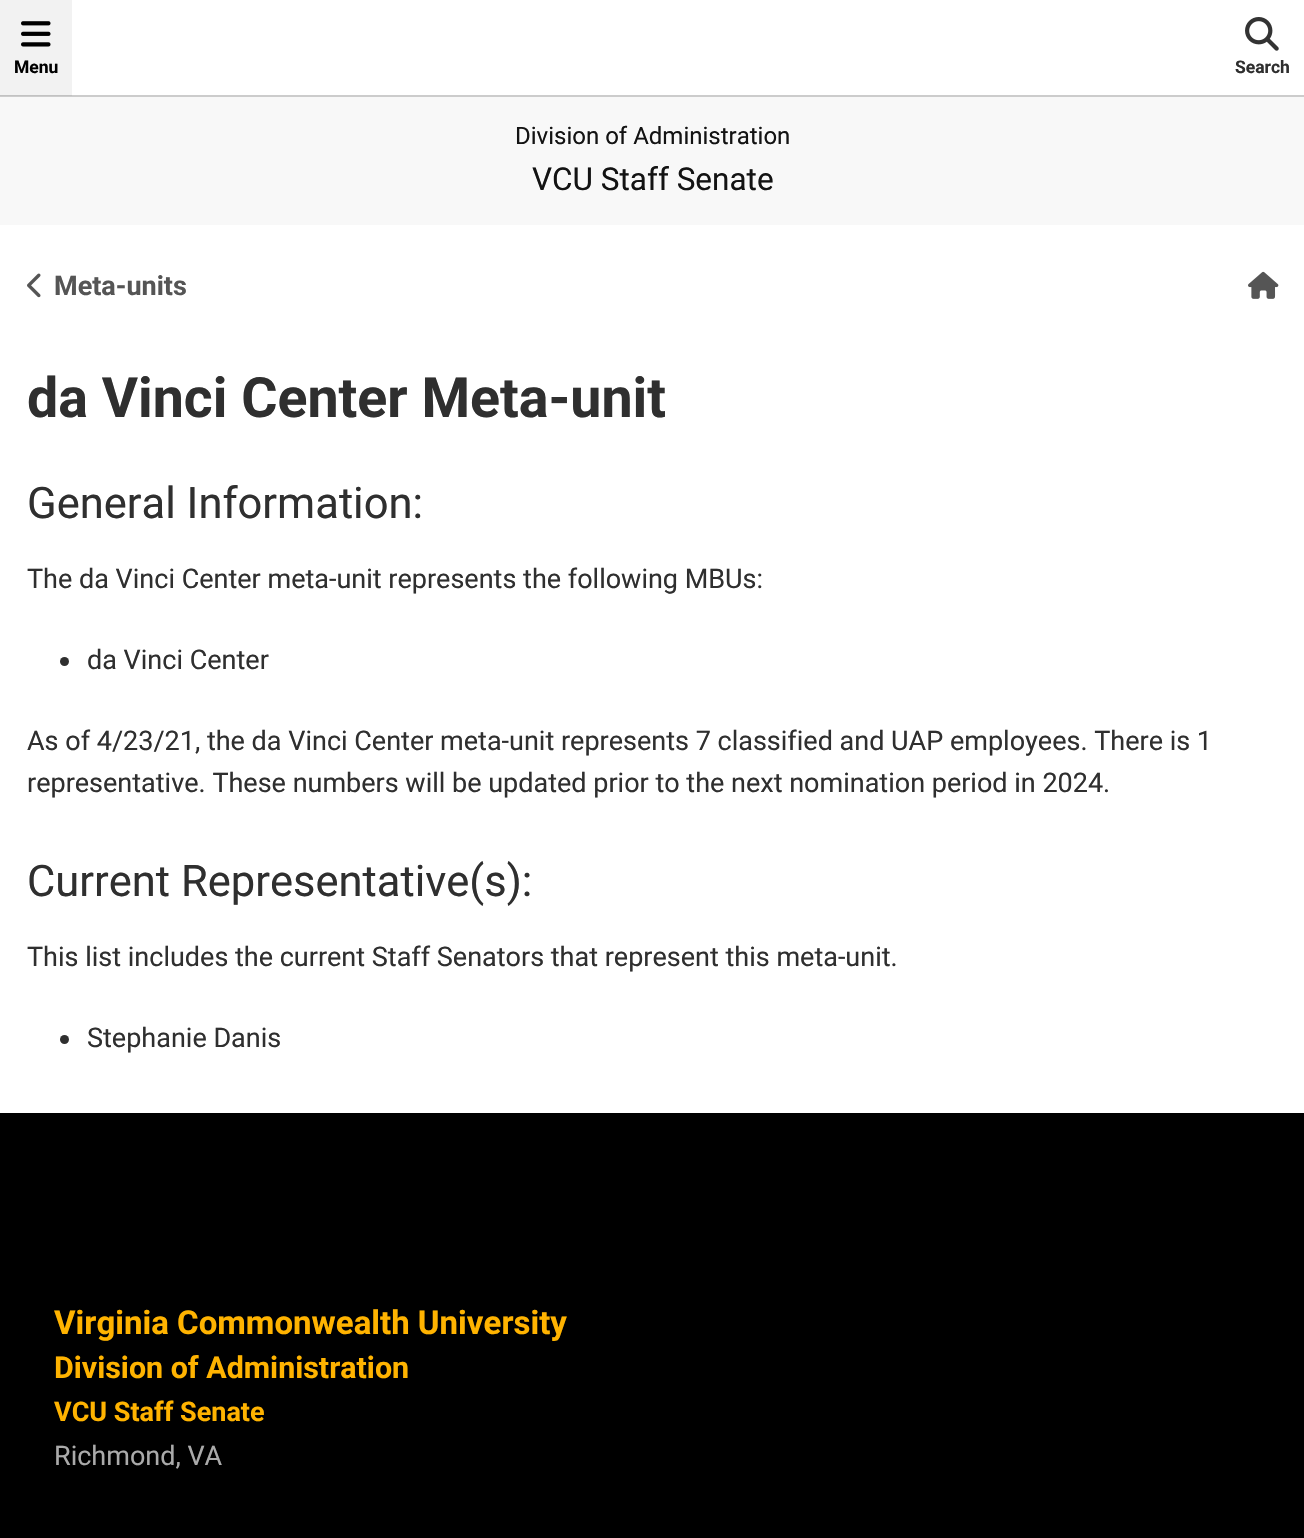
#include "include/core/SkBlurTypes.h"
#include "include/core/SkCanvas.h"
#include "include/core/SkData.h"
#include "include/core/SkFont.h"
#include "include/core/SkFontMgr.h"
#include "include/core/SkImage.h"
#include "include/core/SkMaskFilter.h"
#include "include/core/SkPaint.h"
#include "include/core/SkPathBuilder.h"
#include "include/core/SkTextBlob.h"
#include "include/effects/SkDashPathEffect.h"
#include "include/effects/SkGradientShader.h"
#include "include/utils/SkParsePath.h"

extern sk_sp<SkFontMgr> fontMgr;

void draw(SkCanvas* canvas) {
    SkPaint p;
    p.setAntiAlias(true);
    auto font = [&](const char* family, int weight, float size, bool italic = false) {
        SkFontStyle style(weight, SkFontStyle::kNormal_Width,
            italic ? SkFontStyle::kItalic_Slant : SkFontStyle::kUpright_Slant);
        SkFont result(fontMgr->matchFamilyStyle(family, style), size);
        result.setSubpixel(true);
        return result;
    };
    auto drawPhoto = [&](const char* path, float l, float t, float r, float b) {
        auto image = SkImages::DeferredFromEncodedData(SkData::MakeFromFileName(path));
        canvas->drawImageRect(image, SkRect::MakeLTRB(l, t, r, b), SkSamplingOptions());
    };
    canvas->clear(0xFFFFFFFF);
    p.setColor(0xFFF2F2F2);
    canvas->drawRect(SkRect::MakeLTRB(0, 0, 72, 95), p);
    drawPhoto("media/1.png", 21, 21, 51, 47);
    auto font1 = font("Roboto", 700, 17.5f);
    p.setColor(0xFF000000);
    canvas->drawString("Menu", 14, 73, font1, p);
    p.setColor(0xFFF8F8F8);
    canvas->drawRect(SkRect::MakeLTRB(0, 97, 1304, 225), p);
    drawPhoto("media/2.png", 1245, 17, 1279, 51);
    p.setColor(0xFF2F2F2F);
    canvas->drawString("Search", 1235, 73, font1, p);
    auto font2 = font("Roboto", 400, 24);
    p.setColor(0xFF131313);
    canvas->drawString("Division of Administration", 515, 144, font2, p);
    auto font3 = font("Roboto", 400, 31.5f);
    canvas->drawString("VCU Staff Senate", 532, 190, font3, p);
    p.setColor(0xFFCCCCCC);
    canvas->drawRect(SkRect::MakeLTRB(0, 95, 1304, 97), p);
    p.setColor(0xFFC2C2C2);
    canvas->drawRect(SkRect::MakeLTRB(0, 95, 72, 96), p);
    drawPhoto("media/3.png", 27, 273, 41, 298);
    auto font4 = font("Roboto", 700, 27);
    p.setColor(0xFF555555);
    canvas->drawString("Meta-units", 54, 295, font4, p);
    drawPhoto("media/4.png", 1248, 271, 1279, 299);
    auto font5 = font("Roboto", 700, 55.5f);
    p.setColor(0xFF2F2F2F);
    canvas->drawString("da Vinci Center Meta-unit", 27, 417, font5, p);
    auto font6 = font("Roboto", 400, 43.5f);
    canvas->drawString("General Information:", 27, 518, font6, p);
    auto font7 = font("Roboto", 400, 27);
    canvas->drawString("The da Vinci Center meta-unit represents the following MBUs:", 27, 588, font7, p);
    canvas->drawCircle(64.5f, 661.5f, 4.5f, p);
    {
        const struct { const char* s; float x, y; } items[] = {
            {"da Vinci Center", 87, 669},
            {"As of 4/23/21, the da Vinci Center meta-unit represents 7 classified and UAP employees. There is 1", 27, 750},
            {"representative. These numbers will be updated prior to the next nomination period in 2024.", 27, 792},
        };
        for (auto [s, x, y] : items) {
            canvas->drawString(s, x, y, font7, p);
        }
    }
    canvas->drawString("Current Representative(s):", 27, 896, font6, p);
    canvas->drawString("This list includes the current Staff Senators that represent this meta-unit.", 27, 966, font7, p);
    canvas->drawCircle(64.5f, 1039.5f, 4.5f, p);
    canvas->drawString("Stephanie Danis", 87, 1047, font7, p);
    p.setColor(0xFF000000);
    canvas->drawRect(SkRect::MakeLTRB(0, 1113, 1304, 1538), p);
    auto font8 = font("Roboto", 700, 33);
    p.setColor(0xFFFFB300);
    canvas->drawString("Virginia Commonwealth University", 54, 1334, font8, p);
    auto font9 = font("Roboto", 700, 30.4f);
    canvas->drawString("Division of Administration", 54, 1378, font9, p);
    canvas->drawString("VCU Staff Senate", 54, 1421, font4, p);
    p.setColor(0xFFAAAAAA);
    canvas->drawString("Richmond, VA", 54, 1465, font7, p);
}
